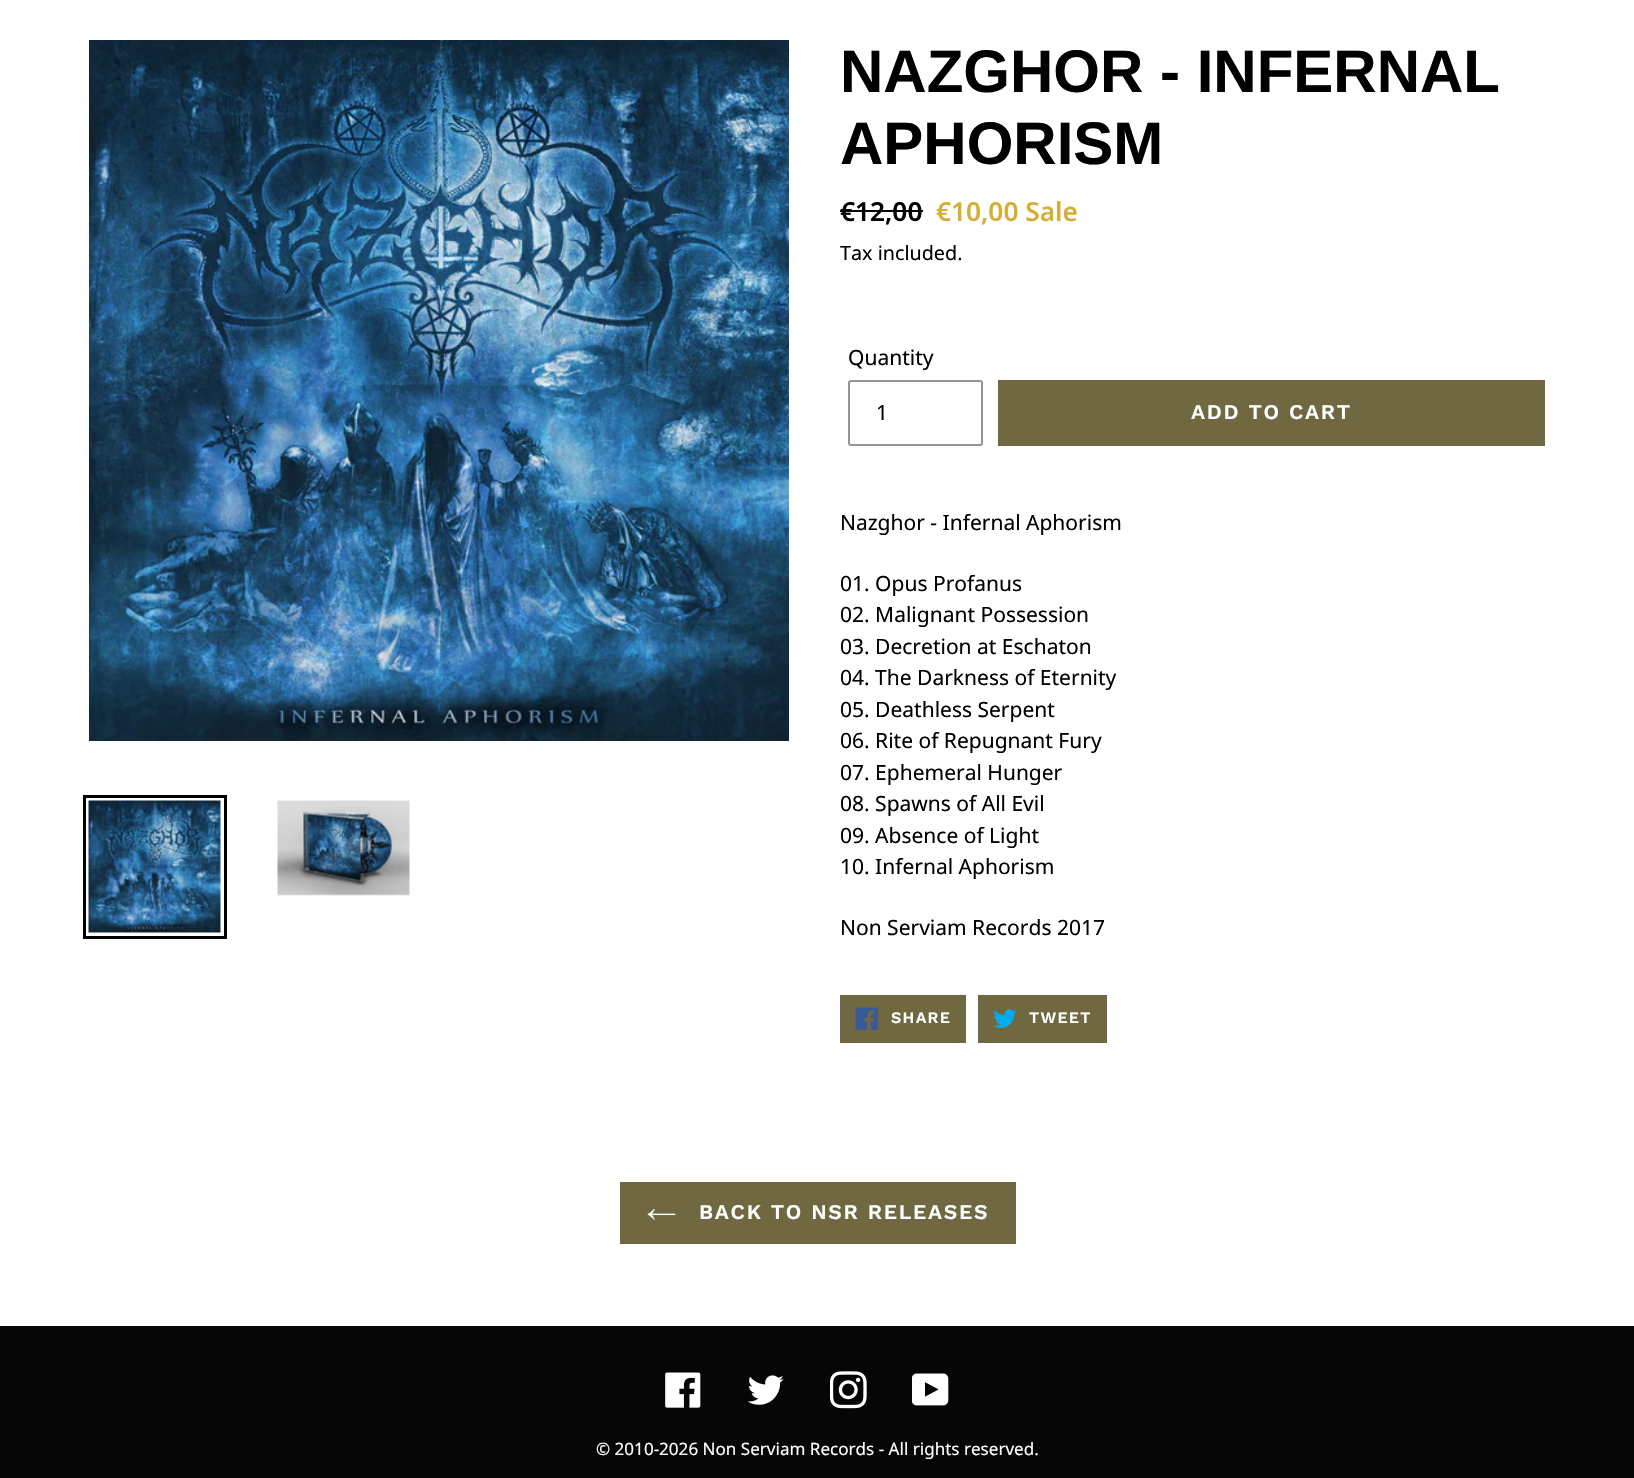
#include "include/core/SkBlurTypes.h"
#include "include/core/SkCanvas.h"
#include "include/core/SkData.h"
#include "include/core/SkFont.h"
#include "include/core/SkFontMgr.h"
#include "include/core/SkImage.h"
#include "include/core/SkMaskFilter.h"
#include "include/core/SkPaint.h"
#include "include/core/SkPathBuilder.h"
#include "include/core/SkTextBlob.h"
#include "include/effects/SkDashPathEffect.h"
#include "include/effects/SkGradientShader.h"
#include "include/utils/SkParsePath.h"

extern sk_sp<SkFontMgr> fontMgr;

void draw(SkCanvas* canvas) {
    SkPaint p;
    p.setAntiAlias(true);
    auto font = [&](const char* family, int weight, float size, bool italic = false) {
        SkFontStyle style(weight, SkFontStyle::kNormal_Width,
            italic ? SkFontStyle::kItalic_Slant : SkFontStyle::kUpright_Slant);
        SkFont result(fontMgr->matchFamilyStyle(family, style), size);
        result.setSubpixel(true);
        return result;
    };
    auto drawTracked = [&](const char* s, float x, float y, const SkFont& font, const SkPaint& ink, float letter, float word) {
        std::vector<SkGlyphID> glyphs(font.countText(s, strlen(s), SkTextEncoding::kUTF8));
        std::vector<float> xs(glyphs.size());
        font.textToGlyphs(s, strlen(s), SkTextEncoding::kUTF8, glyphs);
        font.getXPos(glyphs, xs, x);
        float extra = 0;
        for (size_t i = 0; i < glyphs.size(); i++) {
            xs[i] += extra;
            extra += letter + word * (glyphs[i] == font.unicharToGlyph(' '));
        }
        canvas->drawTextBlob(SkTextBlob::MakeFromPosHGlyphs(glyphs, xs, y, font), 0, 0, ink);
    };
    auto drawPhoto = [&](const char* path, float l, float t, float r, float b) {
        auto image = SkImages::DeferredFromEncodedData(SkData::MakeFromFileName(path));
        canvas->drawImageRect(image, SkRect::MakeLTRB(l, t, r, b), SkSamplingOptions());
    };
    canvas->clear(0xFFFFFFFF);
    drawPhoto("media/1.png", 89, 40, 789, 741);
    p.setStyle(SkPaint::kStroke_Style);
    p.setStrokeWidth(3);
    p.setColor(0xFF000000);
    canvas->drawRect(SkRect::MakeLTRB(84.5f, 796.5f, 225.5f, 937.5f), p);
    drawPhoto("media/2.png", 88, 800, 221, 933);
    drawPhoto("media/3.png", 277, 800, 410, 896);
    auto font1 = font("Liberation Sans", 700, 60);
    p.setStyle(SkPaint::kFill_Style);
    canvas->drawString("NAZGHOR - INFERNAL", 840, 92, font1, p);
    canvas->drawString("APHORISM", 840, 164, font1, p);
    auto font2 = font("Noto Sans", 600, 26.25f);
    canvas->drawString("€12,00", 840, 221, font2, p);
    canvas->drawRect(SkRect::MakeLTRB(840, 210, 923, 212), p);
    p.setColor(0xFFD4AF37);
    canvas->drawString("€10,00 Sale", 936, 221, font2, p);
    auto font3 = font("Noto Sans", 400, 19.75f);
    p.setColor(0xFF000000);
    canvas->drawString("Tax included.", 840, 260, font3, p);
    auto font4 = font("Noto Sans", 400, 21);
    canvas->drawString("Quantity", 848, 365, font4, p);
    p.setStyle(SkPaint::kStroke_Style);
    p.setStrokeWidth(2);
    p.setColor(0xFF949494);
    canvas->drawRoundRect(SkRect::MakeLTRB(849, 381, 982, 445), 2, 2, p);
    p.setStyle(SkPaint::kFill_Style);
    p.setColor(0xFF000000);
    canvas->drawString("1", 876, 420, font4, p);
    p.setColor(0xFF6F6840);
    canvas->drawRect(SkRect::MakeLTRB(998, 380, 1545, 446), p);
    auto font5 = font("Work Sans", 600, 21);
    p.setColor(0xFFFFFFFF);
    drawTracked("ADD TO CART", 1191, 419, font5, p, 1.7f, 0);
    p.setColor(0xFF000000);
    {
        const struct { const char* s; float x, y; } items[] = {
            {"Nazghor - Infernal Aphorism", 840, 530},
            {"01. Opus Profanus", 840, 591},
            {"02. Malignant Possession", 840, 622},
            {"03. Decretion at Eschaton", 840, 654},
            {"04. The Darkness of Eternity", 840, 685},
            {"05. Deathless Serpent", 840, 717},
            {"06. Rite of Repugnant Fury", 840, 748},
            {"07. Ephemeral Hunger", 840, 780},
            {"08. Spawns of All Evil", 840, 811},
            {"09. Absence of Light", 840, 843},
            {"10. Infernal Aphorism", 840, 874},
            {"Non Serviam Records 2017", 840, 935},
        };
        for (auto [s, x, y] : items) {
            canvas->drawString(s, x, y, font4, p);
        }
    }
    p.setColor(0xFF6F6840);
    canvas->drawRect(SkRect::MakeLTRB(840, 995, 966, 1043), p);
    drawPhoto("media/4.png", 855, 1007, 878, 1030);
    auto font6 = font("Work Sans", 600, 16);
    p.setColor(0xFFFFFFFF);
    drawTracked("SHARE", 891, 1023, font6, p, 1.25f, 0);
    p.setColor(0xFF6F6840);
    canvas->drawRect(SkRect::MakeLTRB(978, 995, 1107, 1043), p);
    drawPhoto("media/5.png", 993, 1009, 1017, 1029);
    p.setColor(0xFFFFFFFF);
    drawTracked("TWEET", 1029, 1023, font6, p, 1.25f, 0);
    p.setColor(0xFF6F6840);
    canvas->drawRect(SkRect::MakeLTRB(620, 1182, 1016, 1244), p);
    drawPhoto("media/6.png", 647, 1209, 676, 1220);
    p.setColor(0xFFFFFFFF);
    drawTracked("BACK TO NSR RELEASES", 699, 1219, font5, p, 1.7f, 0);
    p.setColor(0xFF060606);
    canvas->drawRect(SkRect::MakeLTRB(0, 1326, 1634, 1478), p);
    drawPhoto("media/7.png", 665, 1372, 701, 1408);
    drawPhoto("media/8.png", 747, 1375, 784, 1405);
    drawPhoto("media/9.png", 830, 1371, 867, 1409);
    drawPhoto("media/10.png", 912, 1373, 949, 1406);
    auto font7 = font("Noto Sans", 400, 17.05f);
    p.setColor(0xFFFFFFFF);
    canvas->drawString("© 2010-2026 Non Serviam Records - All rights reserved.", 596, 1455, font7, p);
}
